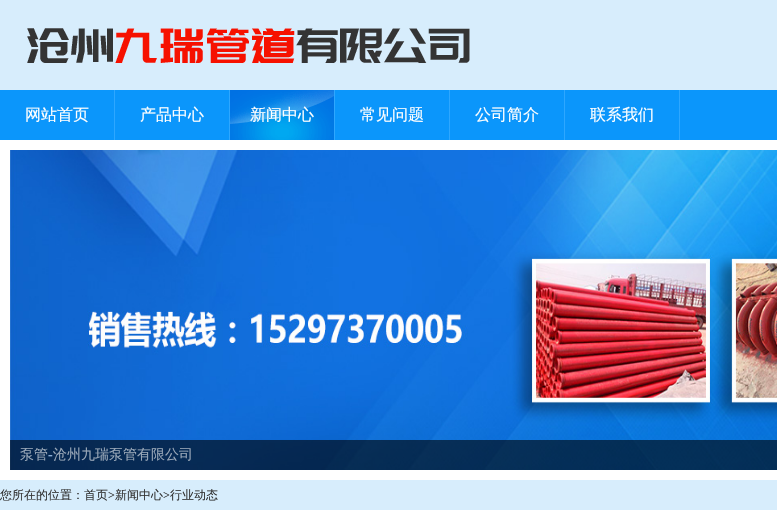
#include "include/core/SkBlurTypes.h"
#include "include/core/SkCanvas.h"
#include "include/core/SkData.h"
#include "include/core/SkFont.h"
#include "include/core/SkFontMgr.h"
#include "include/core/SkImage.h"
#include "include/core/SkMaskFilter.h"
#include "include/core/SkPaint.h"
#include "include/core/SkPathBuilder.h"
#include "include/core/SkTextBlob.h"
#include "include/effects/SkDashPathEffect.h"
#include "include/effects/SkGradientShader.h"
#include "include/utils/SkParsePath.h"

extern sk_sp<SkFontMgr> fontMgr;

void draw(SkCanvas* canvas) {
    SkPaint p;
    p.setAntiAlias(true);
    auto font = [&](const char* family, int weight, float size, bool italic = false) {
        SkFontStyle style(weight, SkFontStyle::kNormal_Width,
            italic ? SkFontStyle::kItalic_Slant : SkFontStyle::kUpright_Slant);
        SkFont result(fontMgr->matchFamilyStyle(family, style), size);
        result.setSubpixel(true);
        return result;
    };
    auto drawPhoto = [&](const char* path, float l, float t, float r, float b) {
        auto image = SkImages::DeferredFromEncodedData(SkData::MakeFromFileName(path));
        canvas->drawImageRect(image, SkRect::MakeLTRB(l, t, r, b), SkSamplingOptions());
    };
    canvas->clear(0xFFD7EDFC);
    drawPhoto("media/1.png", 27, 28, 470, 63);
    p.setColor(0xFF0B96FB);
    canvas->drawRect(SkRect::MakeLTRB(0, 90, 777, 140), p);
    p.setColor(0xFF2EA7FF);
    canvas->drawRect(SkRect::MakeLTRB(114, 90, 115, 140), p);
    auto font1 = font("WenQuanYi Zen Hei", 500, 16);
    p.setColor(0xFFFFFFFF);
    canvas->drawString("网站首页", 25, 120, font1, p);
    p.setColor(0xFF2EA7FF);
    canvas->drawRect(SkRect::MakeLTRB(229, 90, 230, 140), p);
    p.setColor(0xFFFFFFFF);
    canvas->drawString("产品中心", 140, 120, font1, p);
    drawPhoto("media/2.png", 230, 90, 334, 140);
    p.setColor(0xFF2EA7FF);
    canvas->drawRect(SkRect::MakeLTRB(334, 90, 335, 140), p);
    p.setColor(0xFFFFFFFF);
    canvas->drawString("新闻中心", 250, 120, font1, p);
    p.setColor(0xFF2EA7FF);
    canvas->drawRect(SkRect::MakeLTRB(449, 90, 450, 140), p);
    p.setColor(0xFFFFFFFF);
    canvas->drawString("常见问题", 360, 120, font1, p);
    p.setColor(0xFF2EA7FF);
    canvas->drawRect(SkRect::MakeLTRB(564, 90, 565, 140), p);
    p.setColor(0xFFFFFFFF);
    canvas->drawString("公司简介", 475, 120, font1, p);
    p.setColor(0xFF2EA7FF);
    canvas->drawRect(SkRect::MakeLTRB(679, 90, 680, 140), p);
    p.setColor(0xFFFFFFFF);
    canvas->drawString("联系我们", 590, 120, font1, p);
    canvas->drawRect(SkRect::MakeLTRB(0, 140, 777, 480), p);
    drawPhoto("media/3.png", 10, 150, 777, 470);
    p.setColor(0x99000000);
    canvas->drawRect(SkRect::MakeLTRB(10, 440, 777, 470), p);
    auto font2 = font("WenQuanYi Zen Hei", 500, 14);
    p.setColor(0xFF9BA9B9);
    canvas->drawString("泵管", 20, 459, font2, p);
    auto font3 = font("Liberation Serif", 400, 14);
    p.setColor(0xFF9FC1EA);
    canvas->drawString("-", 48, 459, font3, p);
    p.setColor(0xFF9BA9B9);
    canvas->drawString("沧州九瑞泵管有限公司", 53, 459, font2, p);
    auto font4 = font("WenQuanYi Zen Hei", 500, 12);
    p.setColor(0xFF333333);
    canvas->drawString("您所在的位置：首页", 0, 499, font4, p);
    auto font5 = font("Liberation Serif", 400, 12);
    canvas->drawString(">", 108, 499, font5, p);
    canvas->drawString("新闻中心", 115, 499, font4, p);
    canvas->drawString(">", 163, 499, font5, p);
    canvas->drawString("行业动态", 170, 499, font4, p);
}
